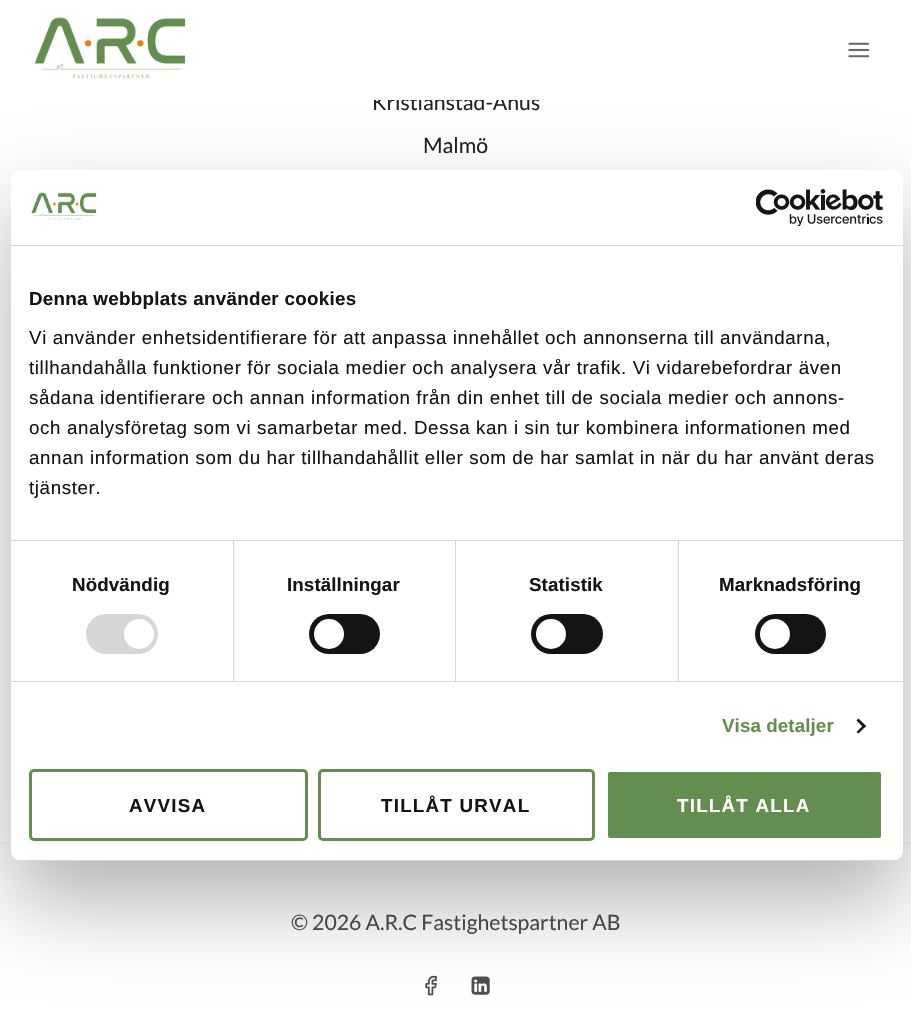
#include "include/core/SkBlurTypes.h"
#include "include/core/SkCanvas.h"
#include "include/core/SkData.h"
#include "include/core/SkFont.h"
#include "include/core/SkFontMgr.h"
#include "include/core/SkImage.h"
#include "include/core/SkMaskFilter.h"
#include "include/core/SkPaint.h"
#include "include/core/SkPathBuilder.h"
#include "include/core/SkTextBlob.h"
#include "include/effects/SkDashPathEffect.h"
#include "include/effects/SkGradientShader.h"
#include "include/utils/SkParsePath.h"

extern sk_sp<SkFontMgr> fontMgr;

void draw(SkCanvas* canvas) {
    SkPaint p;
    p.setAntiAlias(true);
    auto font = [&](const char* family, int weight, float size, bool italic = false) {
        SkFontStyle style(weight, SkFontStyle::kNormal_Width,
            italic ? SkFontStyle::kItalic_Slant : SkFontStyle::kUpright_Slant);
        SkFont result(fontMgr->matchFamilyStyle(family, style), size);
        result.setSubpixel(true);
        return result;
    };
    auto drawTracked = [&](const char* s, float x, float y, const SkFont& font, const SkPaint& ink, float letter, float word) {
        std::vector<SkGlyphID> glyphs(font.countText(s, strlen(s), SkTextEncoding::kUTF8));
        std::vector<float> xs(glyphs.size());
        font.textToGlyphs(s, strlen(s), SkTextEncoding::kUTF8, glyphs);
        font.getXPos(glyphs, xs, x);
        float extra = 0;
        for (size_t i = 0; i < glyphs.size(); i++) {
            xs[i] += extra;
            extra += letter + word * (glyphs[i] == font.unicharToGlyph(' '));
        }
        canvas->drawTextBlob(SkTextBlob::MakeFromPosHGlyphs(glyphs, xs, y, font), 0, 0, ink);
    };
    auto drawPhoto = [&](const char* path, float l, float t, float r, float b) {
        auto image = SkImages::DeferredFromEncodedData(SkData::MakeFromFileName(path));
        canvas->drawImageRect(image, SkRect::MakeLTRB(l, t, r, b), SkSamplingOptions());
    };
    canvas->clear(0xFFFFFFFF);
    auto font1 = font("Lato", 400, 21.25f);
    p.setColor(0xFF222222);
    canvas->drawString("Kristianstad-Åhus", 372, 110, font1, p);
    p.setColor(0xFFFFFFFF);
    canvas->drawRect(SkRect::MakeLTRB(373, 90, 538, 100), p);
    drawPhoto("media/1.png", 34, 17, 186, 79);
    drawPhoto("media/2.png", 848, 42, 870, 58);
    p.setColor(0xFF222222);
    canvas->drawString("Malmö", 423, 153, font1, p);
    p.setColor(0xFFF1F1F1);
    canvas->drawRect(SkRect::MakeLTRB(0, 843, 911, 844), p);
    p.setColor(0xFF4E4E4E);
    canvas->drawString("© 2026 A.R.C Fastighetspartner AB", 291, 930, font1, p);
    drawPhoto("media/3.png", 425, 975, 437, 996);
    drawPhoto("media/4.png", 471, 976, 490, 995);
    p.setColor(0x4D000000);
    p.setMaskFilter(SkMaskFilter::MakeBlur(kNormal_SkBlurStyle, 42.5f));
    canvas->drawRoundRect(SkRect::MakeLTRB(11, 210, 903, 901), 10, 10, p);
    p.setMaskFilter(nullptr);
    p.setColor(0xFFFFFFFF);
    canvas->drawRoundRect(SkRect::MakeLTRB(11, 170, 903, 861), 10, 10, p);
    p.setColor(0xFFD6D6D6);
    canvas->drawRect(SkRect::MakeLTRB(11, 245, 903, 246), p);
    drawPhoto("media/5.png", 31, 192, 97, 220);
    drawPhoto("media/6.png", 756, 189, 883, 226);
    canvas->drawRect(SkRect::MakeLTRB(11, 540, 903, 541), p);
    auto font2 = font("Liberation Sans", 700, 18.75f);
    p.setColor(0xFF141414);
    drawTracked("Denna webbplats använder cookies", 29, 305, font2, p, 0.3f, 0);
    auto font3 = font("Liberation Sans", 400, 18.75f);
    {
        const struct { const char* s; float x, y; } items[] = {
            {"Vi använder enhetsidentifierare för att anpassa innehållet och annonserna till användarna,", 29, 344},
            {"tillhandahålla funktioner för sociala medier och analysera vår trafik. Vi vidarebefordrar även", 29, 374},
            {"sådana identifierare och annan information från din enhet till de sociala medier och annons-", 29, 404},
            {"och analysföretag som vi samarbetar med. Dessa kan i sin tur kombinera informationen med", 29, 434},
            {"annan information som du har tillhandahållit eller som de har samlat in när du har använt deras", 29, 464},
            {"tjänster.", 29, 494},
        };
        for (auto [s, x, y] : items) {
            drawTracked(s, x, y, font3, p, 0.62f, 0);
        }
    }
    p.setColor(0xFFD6D6D6);
    canvas->drawRect(SkRect::MakeLTRB(11, 681, 903, 682), p);
    canvas->drawRect(SkRect::MakeLTRB(233, 541, 234, 681), p);
    p.setColor(0xFF141414);
    drawTracked("Nödvändig", 72, 591, font2, p, 0.1f, 0);
    p.setColor(0xFFD6D6D6);
    canvas->drawRoundRect(SkRect::MakeLTRB(86, 614, 158, 654), 20, 20, p);
    p.setColor(0xFFFFFFFF);
    canvas->drawCircle(139, 634, 15, p);
    p.setColor(0xFFD6D6D6);
    canvas->drawRect(SkRect::MakeLTRB(455, 541, 456, 681), p);
    p.setColor(0xFF141414);
    drawTracked("Inställningar", 287, 591, font2, p, 0.1f, 0);
    canvas->drawRoundRect(SkRect::MakeLTRB(309, 614, 380, 654), 20, 20, p);
    p.setColor(0xFFFFFFFF);
    canvas->drawCircle(329, 634, 15, p);
    p.setColor(0xFFD6D6D6);
    canvas->drawRect(SkRect::MakeLTRB(678, 541, 679, 681), p);
    p.setColor(0xFF141414);
    drawTracked("Statistik", 529, 591, font2, p, 0.1f, 0);
    canvas->drawRoundRect(SkRect::MakeLTRB(531, 614, 603, 654), 20, 20, p);
    p.setColor(0xFFFFFFFF);
    canvas->drawCircle(551, 634, 15, p);
    p.setColor(0xFF141414);
    drawTracked("Marknadsföring", 719, 591, font2, p, 0.1f, 0);
    canvas->drawRoundRect(SkRect::MakeLTRB(755, 614, 826, 654), 20, 20, p);
    p.setColor(0xFFFFFFFF);
    canvas->drawCircle(775, 634, 15, p);
    p.setColor(0xFF648E4F);
    drawTracked("Visa detaljer", 722, 732, font2, p, 0.1f, 0);
    p.setColor(0xFF141414);
    canvas->drawPath(SkPathBuilder().moveTo(858.5f, 718.5f).lineTo(866, 726).lineTo(864, 728).lineTo(856.5f, 720.5f).close().detach(), p);
    canvas->drawPath(SkPathBuilder().moveTo(864, 724.5f).lineTo(866, 726).lineTo(858.5f, 733.5f).lineTo(856.5f, 732).close().detach(), p);
    canvas->save();
    canvas->clipPath(SkPathBuilder().moveTo(21, 170).lineTo(893, 170).cubicTo(898.5f, 170, 903, 174.5f, 903, 180).lineTo(903, 851).cubicTo(903, 856.5f, 898.5f, 861, 893, 861).lineTo(21, 861).cubicTo(15.5f, 861, 11, 856.5f, 11, 851).lineTo(11, 180).cubicTo(11, 174.5f, 15.5f, 170, 21, 170).close().detach(), true);
    p.setColor(0xFFD6D6D6);
    canvas->drawRect(SkRect::MakeLTRB(11, 860, 903, 861), p);
    canvas->restore();
    p.setStyle(SkPaint::kStroke_Style);
    p.setStrokeWidth(3);
    p.setColor(0xFF648E4F);
    canvas->drawRoundRect(SkRect::MakeLTRB(30.5f, 770.5f, 306.5f, 839.5f), 3.5f, 3.5f, p);
    p.setStyle(SkPaint::kFill_Style);
    p.setColor(0xFF141414);
    drawTracked("AVVISA", 129, 812, font2, p, 1.25f, 0);
    p.setStyle(SkPaint::kStroke_Style);
    p.setColor(0xFF648E4F);
    canvas->drawRoundRect(SkRect::MakeLTRB(319.5f, 770.5f, 593.5f, 839.5f), 3.5f, 3.5f, p);
    p.setStyle(SkPaint::kFill_Style);
    p.setColor(0xFF141414);
    drawTracked("TILLÅT URVAL", 381, 812, font2, p, 1.25f, 0);
    p.setColor(0xFF648E4F);
    canvas->drawRoundRect(SkRect::MakeLTRB(606.5f, 770.5f, 882.5f, 839.5f), 3.5f, 3.5f, p);
    p.setStyle(SkPaint::kStroke_Style);
    p.setColor(0xFFFFFFFF);
    canvas->drawRoundRect(SkRect::MakeLTRB(606.5f, 770.5f, 882.5f, 839.5f), 3.5f, 3.5f, p);
    p.setStyle(SkPaint::kFill_Style);
    drawTracked("TILLÅT ALLA", 677, 812, font2, p, 1.25f, 0);
}
